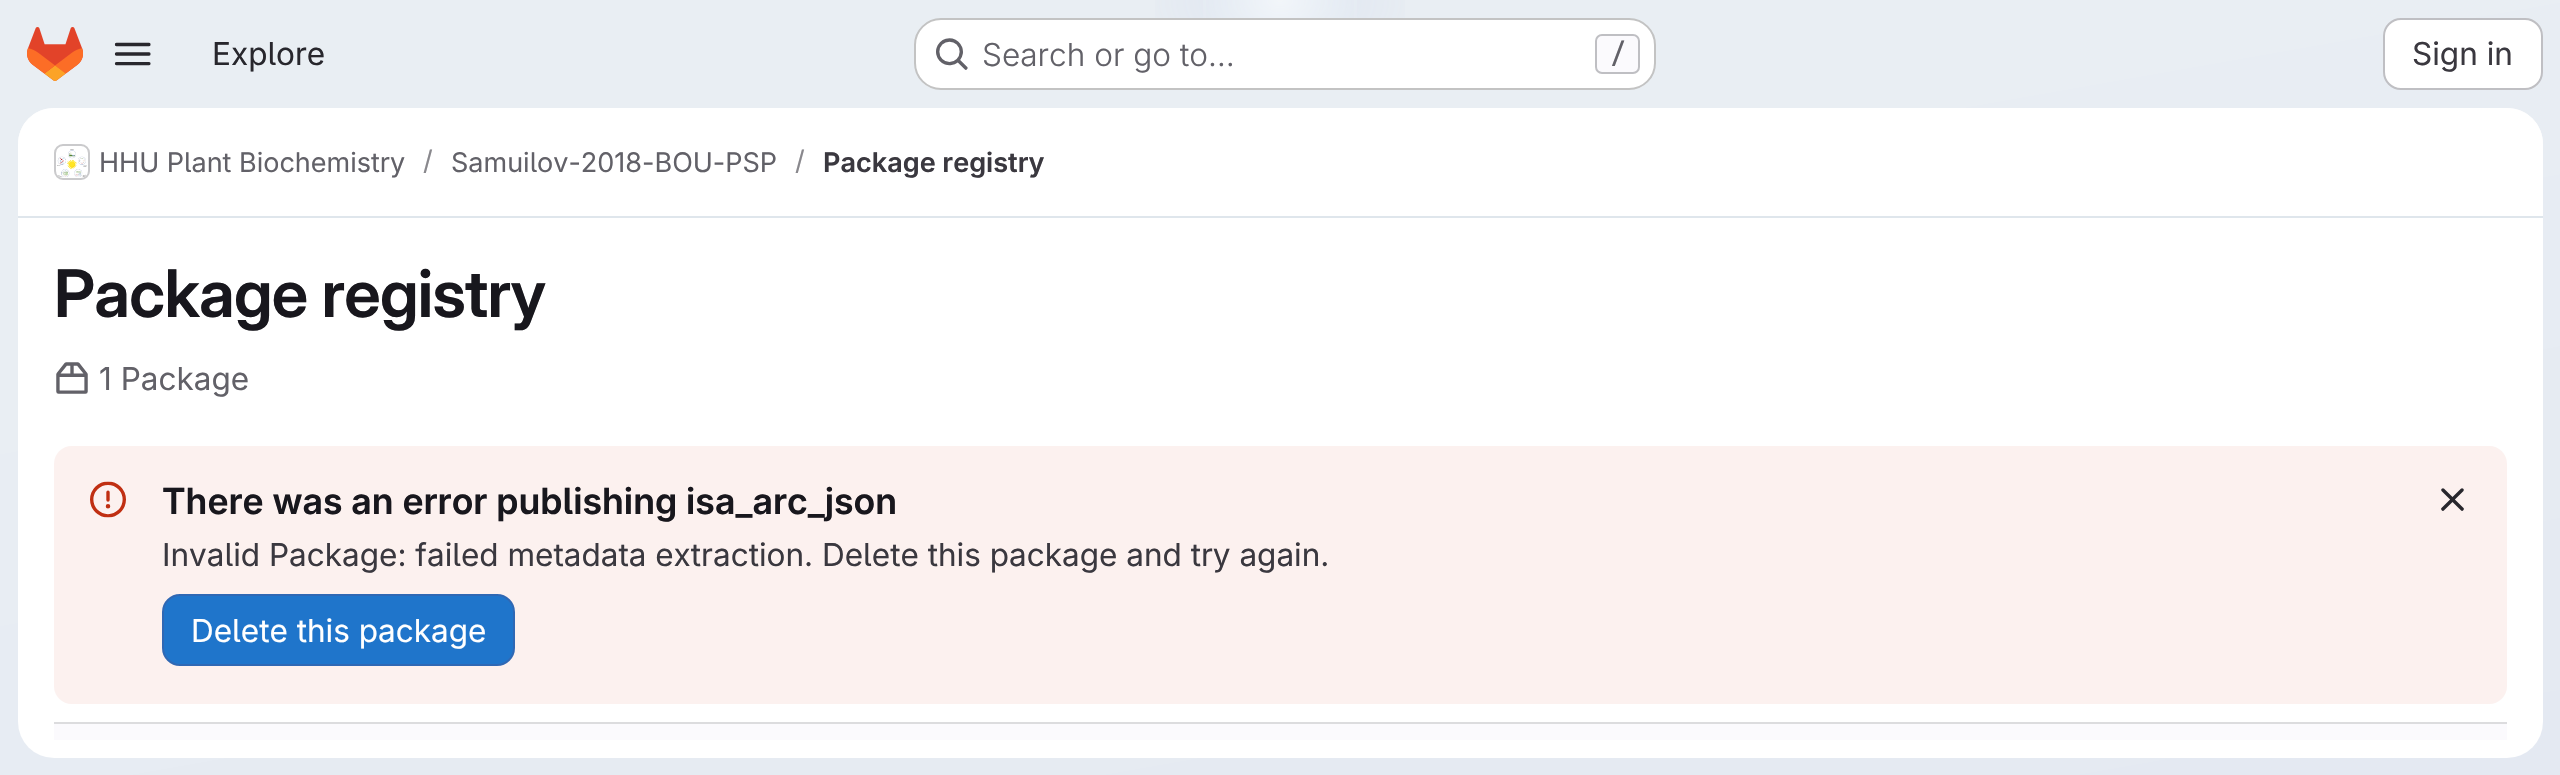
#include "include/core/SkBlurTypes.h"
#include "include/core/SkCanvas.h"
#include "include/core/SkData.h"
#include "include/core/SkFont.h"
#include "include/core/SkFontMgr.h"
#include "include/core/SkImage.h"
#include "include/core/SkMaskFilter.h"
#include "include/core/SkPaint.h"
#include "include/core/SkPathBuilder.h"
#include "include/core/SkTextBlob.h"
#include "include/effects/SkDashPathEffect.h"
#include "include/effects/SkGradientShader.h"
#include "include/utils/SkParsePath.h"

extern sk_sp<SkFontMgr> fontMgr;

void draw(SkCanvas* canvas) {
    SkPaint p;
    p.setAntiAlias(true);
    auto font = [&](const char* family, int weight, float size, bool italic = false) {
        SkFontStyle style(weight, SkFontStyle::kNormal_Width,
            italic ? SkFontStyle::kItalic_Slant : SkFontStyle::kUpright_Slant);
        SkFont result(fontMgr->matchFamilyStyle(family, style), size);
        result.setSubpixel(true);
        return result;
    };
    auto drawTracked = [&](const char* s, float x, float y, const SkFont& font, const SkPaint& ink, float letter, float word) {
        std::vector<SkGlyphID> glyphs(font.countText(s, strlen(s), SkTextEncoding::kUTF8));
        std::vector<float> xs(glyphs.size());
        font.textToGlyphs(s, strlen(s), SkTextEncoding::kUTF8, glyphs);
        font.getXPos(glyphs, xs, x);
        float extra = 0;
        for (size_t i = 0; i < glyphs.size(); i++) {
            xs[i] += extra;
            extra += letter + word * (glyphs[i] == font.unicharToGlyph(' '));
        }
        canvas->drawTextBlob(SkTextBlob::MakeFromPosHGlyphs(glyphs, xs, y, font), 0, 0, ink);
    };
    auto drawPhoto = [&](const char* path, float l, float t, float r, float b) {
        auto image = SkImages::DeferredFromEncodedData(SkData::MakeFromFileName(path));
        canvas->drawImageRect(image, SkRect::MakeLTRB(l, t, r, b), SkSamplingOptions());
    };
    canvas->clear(0xFFFFFFFF);
    {
        const SkColor colors[] = {0xFFE4E9F2, 0xFFE9EEF3};
        const float stops[] = {0, 0.7f};
        const SkPoint ends[] = {{1385, 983}, {1175, -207}};
        p.setShader(SkGradientShader::MakeLinear(ends, colors, stops, 2, SkTileMode::kClamp));
        p.setAlpha(255);
    }
    canvas->drawRect(SkRect::MakeLTRB(0, 0, 2560, 775), p);
    {
        const SkColor colors[] = {0xFFDEE5F1, 0x00DEE5F1};
        const float stops[] = {0, 0.12f};
        SkMatrix m = SkMatrix::Translate(1280, 0).preScale(1280, 776);
        p.setShader(SkGradientShader::MakeRadial({0, 0}, 1, colors, stops, 2, SkTileMode::kClamp, 0, &m));
        p.setAlpha(255);
    }
    canvas->drawRect(SkRect::MakeLTRB(1155, 0, 1405, 18), p);
    {
        const SkColor colors[] = {0xFFDEE7F1, 0x00DEE7F1};
        const float stops[] = {0, 0.09f};
        SkMatrix m = SkMatrix::Translate(1280, 0).preScale(1280, 776);
        p.setShader(SkGradientShader::MakeRadial({0, 0}, 1, colors, stops, 2, SkTileMode::kClamp, 0, &m));
        p.setAlpha(255);
    }
    canvas->drawRect(SkRect::MakeLTRB(1206, 0, 1354, 18), p);
    {
        const SkColor colors[] = {0x99FFFFFF, 0x00FFFFFF};
        const float stops[] = {0, 0.06f};
        p.setShader(SkGradientShader::MakeRadial({1280, 0}, 1497, colors, stops, 2, SkTileMode::kClamp));
        p.setAlpha(255);
    }
    canvas->drawRect(SkRect::MakeLTRB(1203, 0, 1357, 18), p);
    drawPhoto("media/1.png", 27, 27, 83, 81);
    drawPhoto("media/2.png", 114, 42, 151, 66);
    auto font1 = font("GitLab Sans", 400, 31.5f);
    p.setShader(nullptr);
    p.setColor(0xFF28272D);
    canvas->drawString("Explore", 212, 65, font1, p);
    p.setColor(0xFFFFFFFF);
    canvas->drawRoundRect(SkRect::MakeLTRB(914, 18, 1656, 90), 27, 27, p);
    p.setStyle(SkPaint::kStroke_Style);
    p.setStrokeWidth(2);
    p.setColor(0x3D050506);
    canvas->drawRoundRect(SkRect::MakeLTRB(915, 19, 1655, 89), 26, 26, p);
    drawPhoto("media/3.png", 936, 38, 968, 70);
    auto font2 = font("GitLab Sans", 300, 31.5f);
    p.setStyle(SkPaint::kFill_Style);
    p.setColor(0xFF626168);
    canvas->drawString("Search or go to…", 982, 66, font2, p);
    p.setColor(0xFFFBFAFD);
    canvas->drawRoundRect(SkRect::MakeLTRB(1596, 35, 1639, 73), 6, 6, p);
    p.setStyle(SkPaint::kStroke_Style);
    p.setColor(0xFFBFBFC3);
    canvas->drawRoundRect(SkRect::MakeLTRB(1596, 35, 1639, 73), 6, 6, p);
    auto font3 = font("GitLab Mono", 500, 27);
    p.setStyle(SkPaint::kFill_Style);
    p.setColor(0xFF626168);
    canvas->drawString("/", 1610, 63, font3, p);
    p.setColor(0xFFFFFFFF);
    canvas->drawRoundRect(SkRect::MakeLTRB(2384, 19, 2542, 89), 17, 17, p);
    p.setStyle(SkPaint::kStroke_Style);
    p.setColor(0xFFBFBFC3);
    canvas->drawRoundRect(SkRect::MakeLTRB(2384, 19, 2542, 89), 17, 17, p);
    p.setStyle(SkPaint::kFill_Style);
    p.setColor(0xFF3A383F);
    canvas->drawString("Sign in", 2412, 65, font1, p);
    p.setColor(0xFFFFFFFF);
    canvas->drawRoundRect(SkRect::MakeLTRB(18, 108, 2543, 758), 36, 36, p);
    canvas->drawPath(SkPathBuilder().moveTo(54, 108).lineTo(2507, 108).cubicTo(2527, 108, 2543, 124, 2543, 144).lineTo(2543, 218).lineTo(18, 218).lineTo(18, 144).cubicTo(18, 124, 34, 108, 54, 108).close().detach(), p);
    p.setColor(0xFFDFE6EC);
    canvas->drawRect(SkRect::MakeLTRB(18, 216, 2543, 218), p);
    p.setStyle(SkPaint::kStroke_Style);
    p.setColor(0xFFDCDCDE);
    canvas->drawRoundRect(SkRect::MakeLTRB(55, 145, 89, 179), 8, 8, p);
    drawPhoto("media/4.png", 57, 149, 87, 177);
    p.setColor(0x14050506);
    canvas->drawRoundRect(SkRect::MakeLTRB(55, 145, 89, 179), 8, 8, p);
    auto font4 = font("GitLab Sans", 400, 27);
    p.setStyle(SkPaint::kFill_Style);
    p.setColor(0xFF626168);
    canvas->drawString("HHU Plant Biochemistry", 99, 172, font4, p);
    p.setColor(0xFF89888D);
    canvas->drawString("/", 423, 170, font4, p);
    p.setColor(0xFF626168);
    canvas->drawString("Samuilov-2018-BOU-PSP", 451, 172, font4, p);
    p.setColor(0xFF89888D);
    canvas->drawString("/", 795, 170, font4, p);
    auto font5 = font("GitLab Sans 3", 600, 27);
    p.setColor(0xFF3A383F);
    canvas->drawString("Package registry", 823, 172, font5, p);
    auto font6 = font("GitLab Sans", 600, 65.5f);
    p.setColor(0xFF18171D);
    drawTracked("Package registry", 54, 317, font6, p, -0.7f, 0);
    drawPhoto("media/5.png", 56, 362, 88, 394);
    p.setColor(0xFF626168);
    canvas->drawString("1 Package", 99, 390, font1, p);
    p.setColor(0xFFFCF1EF);
    canvas->drawRoundRect(SkRect::MakeLTRB(54, 446, 2507, 704), 18, 18, p);
    drawPhoto("media/6.png", 90, 481, 126, 518);
    auto font7 = font("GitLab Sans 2", 600, 36);
    p.setColor(0xFF18171D);
    canvas->drawString("There was an error publishing isa_arc_json", 162, 514, font7, p);
    p.setColor(0xFF3A383F);
    canvas->drawString("Invalid Package: failed metadata extraction. Delete this package and try again.", 162, 566, font1, p);
    p.setColor(0xFF1F75CB);
    canvas->drawRoundRect(SkRect::MakeLTRB(163, 595, 514, 665), 17, 17, p);
    p.setStyle(SkPaint::kStroke_Style);
    p.setColor(0xFF2F68B4);
    canvas->drawRoundRect(SkRect::MakeLTRB(163, 595, 514, 665), 17, 17, p);
    p.setStyle(SkPaint::kFill_Style);
    p.setColor(0xFFFFFFFF);
    canvas->drawString("Delete this package", 191, 642, font1, p);
    drawPhoto("media/7.png", 2441, 488, 2464, 511);
    p.setColor(0xFFFBFAFD);
    canvas->drawRect(SkRect::MakeLTRB(54, 724, 2507, 740), p);
    p.setColor(0xFFDCDCDE);
    canvas->drawRect(SkRect::MakeLTRB(54, 722, 2507, 724), p);
}
